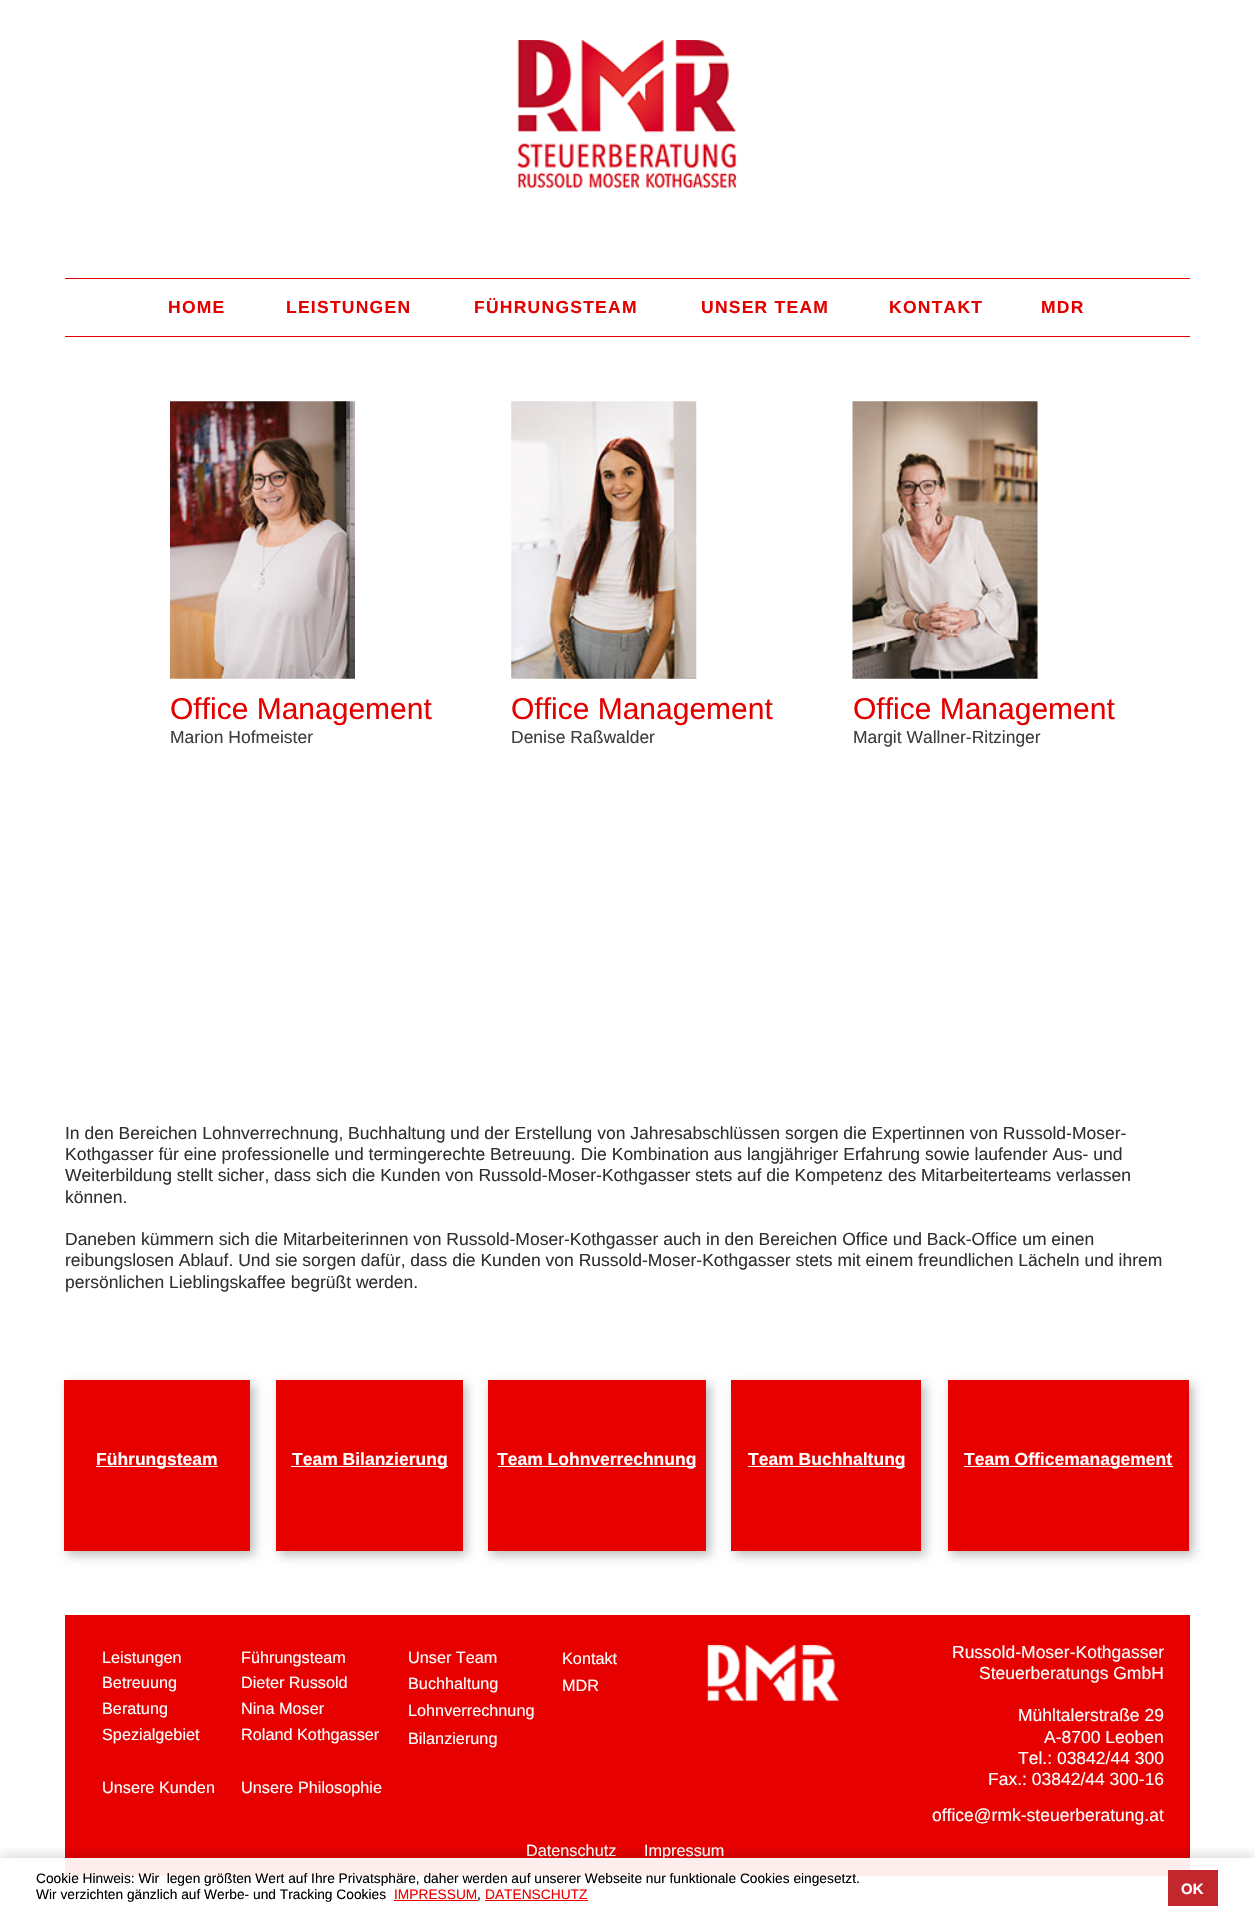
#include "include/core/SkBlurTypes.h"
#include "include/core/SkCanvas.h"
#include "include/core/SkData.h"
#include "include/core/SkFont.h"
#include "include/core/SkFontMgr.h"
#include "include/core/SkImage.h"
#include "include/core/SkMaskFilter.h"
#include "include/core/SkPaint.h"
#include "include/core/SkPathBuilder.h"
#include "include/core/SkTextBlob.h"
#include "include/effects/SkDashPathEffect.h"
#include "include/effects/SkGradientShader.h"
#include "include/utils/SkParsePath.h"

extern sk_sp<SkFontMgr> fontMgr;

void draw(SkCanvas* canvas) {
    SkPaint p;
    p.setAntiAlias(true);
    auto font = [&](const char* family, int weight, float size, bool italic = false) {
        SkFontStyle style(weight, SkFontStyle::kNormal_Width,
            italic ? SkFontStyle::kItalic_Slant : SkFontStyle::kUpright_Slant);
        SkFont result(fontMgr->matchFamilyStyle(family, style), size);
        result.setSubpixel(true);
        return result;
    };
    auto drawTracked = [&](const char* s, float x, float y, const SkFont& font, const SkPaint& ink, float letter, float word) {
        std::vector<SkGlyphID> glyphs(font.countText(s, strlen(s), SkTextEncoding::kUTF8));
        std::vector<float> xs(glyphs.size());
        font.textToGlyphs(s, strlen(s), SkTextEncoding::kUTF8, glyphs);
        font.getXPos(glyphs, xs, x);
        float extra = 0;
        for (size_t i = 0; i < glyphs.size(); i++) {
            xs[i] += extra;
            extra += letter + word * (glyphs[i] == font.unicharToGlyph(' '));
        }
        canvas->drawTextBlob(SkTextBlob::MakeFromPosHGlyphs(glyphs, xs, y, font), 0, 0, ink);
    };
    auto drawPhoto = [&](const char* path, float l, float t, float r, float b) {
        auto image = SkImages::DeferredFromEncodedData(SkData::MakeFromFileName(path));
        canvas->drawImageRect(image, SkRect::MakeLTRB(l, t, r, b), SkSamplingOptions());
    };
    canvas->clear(0xFFFFFFFF);
    drawPhoto("media/1.png", 517, 40, 737, 188);
    p.setColor(0xFFE60000);
    canvas->drawRect(SkRect::MakeLTRB(65, 278, 1190, 279), p);
    canvas->drawRect(SkRect::MakeLTRB(65, 336, 1190, 337), p);
    auto font1 = font("Liberation Sans", 700, 17.5f);
    p.setColor(0xFFE50000);
    {
        const struct { const char* s; float x, y; } items[] = {
            {"HOME", 168, 313},
            {"LEISTUNGEN", 286, 313},
            {"FÜHRUNGSTEAM", 474, 313},
            {"UNSER TEAM", 701, 313},
            {"KONTAKT", 889, 313},
            {"MDR", 1041, 313},
        };
        for (auto [s, x, y] : items) {
            drawTracked(s, x, y, font1, p, 1.25f, 0);
        }
    }
    drawPhoto("media/2.png", 170, 401, 355, 679);
    drawPhoto("media/3.png", 511, 401, 697, 679);
    drawPhoto("media/4.png", 852, 401, 1038, 679);
    auto font2 = font("Liberation Sans", 400, 30);
    canvas->drawString("Office Management", 170, 719, font2, p);
    auto font3 = font("Liberation Sans", 400, 17.5f);
    p.setColor(0xFF3D3D3D);
    canvas->drawString("Marion Hofmeister", 170, 743, font3, p);
    p.setColor(0xFFE50000);
    canvas->drawString("Office Management", 511, 719, font2, p);
    p.setColor(0xFF3D3D3D);
    canvas->drawString("Denise Raßwalder", 511, 743, font3, p);
    p.setColor(0xFFE50000);
    canvas->drawString("Office Management", 853, 719, font2, p);
    p.setColor(0xFF3D3D3D);
    canvas->drawString("Margit Wallner-Ritzinger", 853, 743, font3, p);
    p.setColor(0xFF303030);
    {
        const struct { const char* s; float x, y; } items[] = {
            {"In den Bereichen Lohnverrechnung, Buchhaltung und der Erstellung von Jahresabschlüssen sorgen die Expertinnen von Russold-Moser-", 65, 1139},
            {"Kothgasser für eine professionelle und termingerechte Betreuung. Die Kombination aus langjähriger Erfahrung sowie laufender Aus- und", 65, 1160},
            {"Weiterbildung stellt sicher, dass sich die Kunden von Russold-Moser-Kothgasser stets auf die Kompetenz des Mitarbeiterteams verlassen", 65, 1181},
            {"können.", 65, 1203},
            {"Daneben kümmern sich die Mitarbeiterinnen von Russold-Moser-Kothgasser auch in den Bereichen Office und Back-Office um einen", 65, 1245},
            {"reibungslosen Ablauf. Und sie sorgen dafür, dass die Kunden von Russold-Moser-Kothgasser stets mit einem freundlichen Lächeln und ihrem", 65, 1266},
            {"persönlichen Lieblingskaffee begrüßt werden.", 65, 1288},
        };
        for (auto [s, x, y] : items) {
            canvas->drawString(s, x, y, font3, p);
        }
    }
    p.setColor(0x45000000);
    p.setMaskFilter(SkMaskFilter::MakeBlur(kNormal_SkBlurStyle, 5));
    canvas->drawRect(SkRect::MakeLTRB(68, 1384, 254, 1555), p);
    p.setMaskFilter(nullptr);
    p.setColor(0xFFE60000);
    canvas->drawRect(SkRect::MakeLTRB(64, 1380, 250, 1551), p);
    p.setColor(0xFFFFFFFF);
    canvas->drawRect(SkRect::MakeLTRB(96, 1466, 218, 1467), p);
    canvas->drawString("Führungsteam", 96, 1465, font1, p);
    p.setColor(0x45000000);
    p.setMaskFilter(SkMaskFilter::MakeBlur(kNormal_SkBlurStyle, 5));
    canvas->drawRect(SkRect::MakeLTRB(280, 1384, 466, 1555), p);
    p.setMaskFilter(nullptr);
    p.setColor(0xFFE60000);
    canvas->drawRect(SkRect::MakeLTRB(276, 1380, 463, 1551), p);
    p.setColor(0xFFFFFFFF);
    canvas->drawRect(SkRect::MakeLTRB(291, 1466, 448, 1467), p);
    canvas->drawString("Team Bilanzierung", 292, 1465, font1, p);
    p.setColor(0x45000000);
    p.setMaskFilter(SkMaskFilter::MakeBlur(kNormal_SkBlurStyle, 5));
    canvas->drawRect(SkRect::MakeLTRB(491, 1384, 710, 1555), p);
    p.setMaskFilter(nullptr);
    p.setColor(0xFFE60000);
    canvas->drawRect(SkRect::MakeLTRB(488, 1380, 706, 1551), p);
    p.setColor(0xFFFFFFFF);
    canvas->drawRect(SkRect::MakeLTRB(498, 1466, 696, 1467), p);
    canvas->drawString("Team Lohnverrechnung", 497, 1465, font1, p);
    p.setColor(0x45000000);
    p.setMaskFilter(SkMaskFilter::MakeBlur(kNormal_SkBlurStyle, 5));
    canvas->drawRect(SkRect::MakeLTRB(735, 1384, 925, 1555), p);
    p.setMaskFilter(nullptr);
    p.setColor(0xFFE60000);
    canvas->drawRect(SkRect::MakeLTRB(731, 1380, 921, 1551), p);
    p.setColor(0xFFFFFFFF);
    canvas->drawRect(SkRect::MakeLTRB(748, 1466, 905, 1467), p);
    canvas->drawString("Team Buchhaltung", 748, 1465, font1, p);
    p.setColor(0x45000000);
    p.setMaskFilter(SkMaskFilter::MakeBlur(kNormal_SkBlurStyle, 5));
    canvas->drawRect(SkRect::MakeLTRB(951, 1384, 1193, 1555), p);
    p.setMaskFilter(nullptr);
    p.setColor(0xFFE60000);
    canvas->drawRect(SkRect::MakeLTRB(948, 1380, 1189, 1551), p);
    p.setColor(0xFFFFFFFF);
    canvas->drawRect(SkRect::MakeLTRB(964, 1466, 1173, 1467), p);
    canvas->drawString("Team Officemanagement", 964, 1465, font1, p);
    p.setColor(0xFFE60000);
    canvas->drawRect(SkRect::MakeLTRB(65, 1615, 1190, 1876), p);
    auto font4 = font("Liberation Sans", 400, 16.25f);
    p.setColor(0xFFFFFFFF);
    {
        const struct { const char* s; float x, y; } items[] = {
            {"Leistungen", 102, 1663},
            {"Betreuung", 102, 1688},
            {"Beratung", 102, 1714},
            {"Spezialgebiet", 102, 1740},
            {"Unsere Kunden", 102, 1793},
            {"Führungsteam", 241, 1663},
            {"Dieter Russold", 241, 1688},
            {"Nina Moser", 241, 1714},
            {"Roland Kothgasser", 241, 1740},
            {"Unsere Philosophie", 241, 1793},
            {"Unser Team", 408, 1663},
            {"Buchhaltung", 408, 1689},
            {"Lohnverrechnung", 408, 1716},
            {"Bilanzierung", 408, 1744},
            {"Kontakt", 562, 1664},
            {"MDR", 562, 1691},
        };
        for (auto [s, x, y] : items) {
            canvas->drawString(s, x, y, font4, p);
        }
    }
    drawPhoto("media/5.png", 707, 1645, 839, 1702);
    canvas->drawString("Datenschutz", 526, 1856, font4, p);
    canvas->drawString("Impressum", 644, 1856, font4, p);
    {
        const struct { const char* s; float x, y; } items[] = {
            {"Russold-Moser-Kothgasser", 952, 1658},
            {"Steuerberatungs GmbH", 979, 1679},
            {"Mühltalerstraße 29", 1018, 1721},
            {"A-8700 Leoben", 1044, 1743},
            {"Tel.: 03842/44 300", 1018, 1764},
            {"Fax.: 03842/44 300-16", 988, 1785},
            {"office@rmk-steuerberatung.at", 932, 1821},
        };
        for (auto [s, x, y] : items) {
            canvas->drawString(s, x, y, font3, p);
        }
    }
    canvas->save();
    canvas->clipRect(SkRect::MakeLTRB(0, 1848, 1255, 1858));
    p.setColor(0x36000000);
    p.setMaskFilter(SkMaskFilter::MakeBlur(kNormal_SkBlurStyle, 7.5f));
    canvas->drawRect(SkRect::MakeLTRB(0, 1858, 1255, 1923), p);
    p.setMaskFilter(nullptr);
    canvas->restore();
    p.setColor(0xEDFFFFFF);
    canvas->drawRect(SkRect::MakeLTRB(65, 1858, 1190, 1876), p);
    auto font5 = font("Liberation Sans", 400, 13.75f);
    p.setColor(0xFF000000);
    canvas->drawString("Cookie Hinweis: Wir  legen größten Wert auf Ihre Privatsphäre, daher werden auf unserer Webseite nur funktionale Cookies eingesetzt.", 36, 1883, font5, p);
    canvas->drawString("Wir verzichten gänzlich auf Werbe- und Tracking Cookies", 36, 1899, font5, p);
    p.setColor(0xFFED0200);
    canvas->drawString("IMPRESSUM", 394, 1899, font5, p);
    canvas->drawRect(SkRect::MakeLTRB(394, 1900, 478, 1901), p);
    p.setColor(0xFF000000);
    canvas->drawString(",", 477, 1899, font5, p);
    p.setColor(0xFFED0200);
    canvas->drawString("DATENSCHUTZ", 485, 1899, font5, p);
    canvas->drawRect(SkRect::MakeLTRB(485, 1900, 588, 1901), p);
    p.setColor(0xFFC1272D);
    canvas->drawRect(SkRect::MakeLTRB(1168, 1870, 1218, 1906), p);
    auto font6 = font("Liberation Sans", 700, 15);
    p.setColor(0xFFFFFFFF);
    canvas->drawString("OK", 1181, 1894, font6, p);
}
